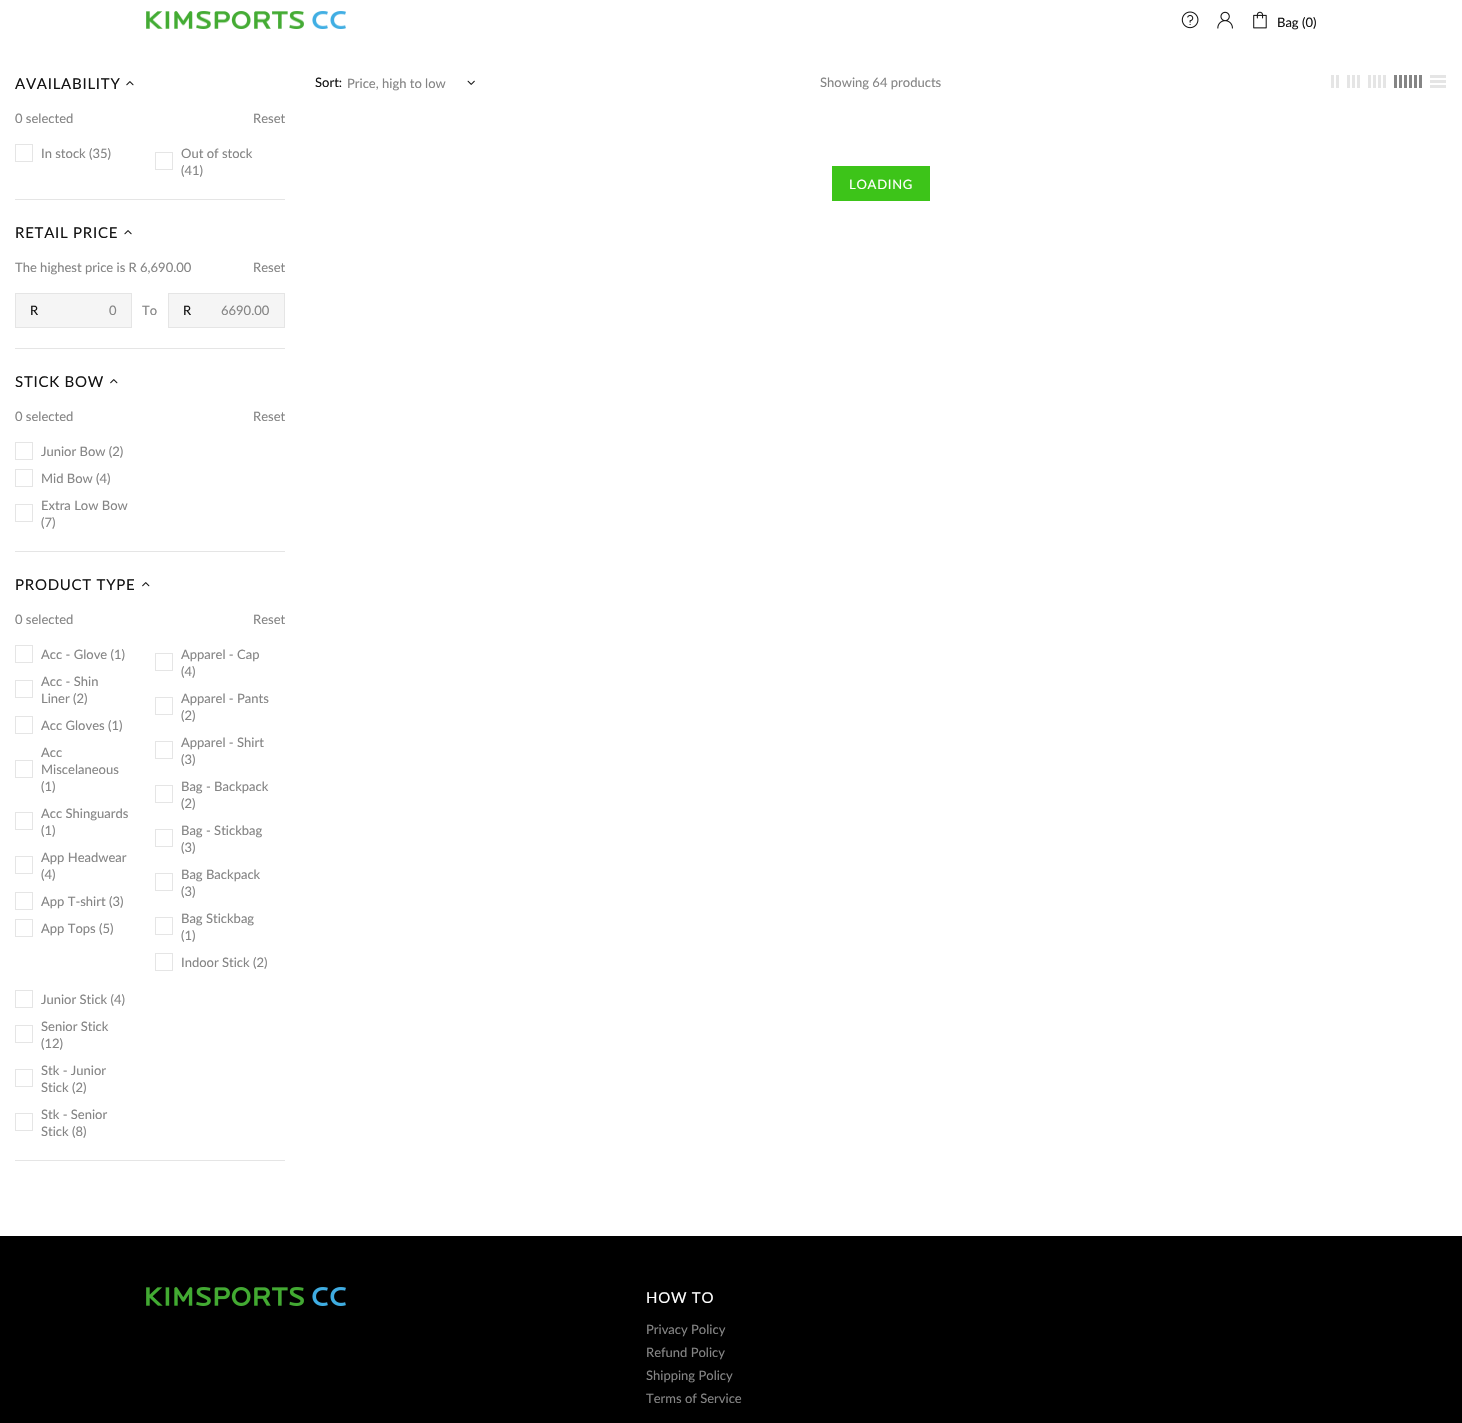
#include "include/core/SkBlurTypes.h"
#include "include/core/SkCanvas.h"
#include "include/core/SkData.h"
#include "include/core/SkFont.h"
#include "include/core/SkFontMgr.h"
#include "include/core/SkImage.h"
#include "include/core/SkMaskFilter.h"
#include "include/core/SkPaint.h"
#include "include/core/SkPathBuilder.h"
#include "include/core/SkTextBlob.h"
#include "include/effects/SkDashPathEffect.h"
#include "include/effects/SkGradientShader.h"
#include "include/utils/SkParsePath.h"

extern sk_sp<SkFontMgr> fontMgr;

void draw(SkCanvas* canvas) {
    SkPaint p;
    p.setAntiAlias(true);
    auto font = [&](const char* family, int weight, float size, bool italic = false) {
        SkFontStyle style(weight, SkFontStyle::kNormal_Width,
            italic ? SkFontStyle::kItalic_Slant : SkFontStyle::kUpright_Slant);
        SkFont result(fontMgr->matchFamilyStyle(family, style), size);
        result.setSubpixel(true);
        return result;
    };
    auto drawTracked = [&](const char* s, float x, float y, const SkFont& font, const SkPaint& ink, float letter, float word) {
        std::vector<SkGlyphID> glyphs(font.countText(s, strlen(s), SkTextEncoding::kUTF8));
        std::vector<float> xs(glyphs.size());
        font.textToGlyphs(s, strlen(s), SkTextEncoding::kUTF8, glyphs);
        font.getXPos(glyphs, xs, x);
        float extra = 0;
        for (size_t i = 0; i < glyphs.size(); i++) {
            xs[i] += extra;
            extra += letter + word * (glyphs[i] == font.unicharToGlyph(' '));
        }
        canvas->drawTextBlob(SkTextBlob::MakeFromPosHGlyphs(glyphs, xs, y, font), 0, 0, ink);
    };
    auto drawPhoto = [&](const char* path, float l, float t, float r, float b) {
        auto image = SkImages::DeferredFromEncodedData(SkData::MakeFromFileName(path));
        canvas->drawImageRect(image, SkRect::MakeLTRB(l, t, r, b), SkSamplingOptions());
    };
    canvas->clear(0xFFFFFFFF);
    drawPhoto("media/1.png", 146, 11, 346, 29);
    drawPhoto("media/2.png", 1181, 11, 1199, 29);
    drawPhoto("media/3.png", 1217, 11, 1233, 29);
    drawPhoto("media/4.png", 1253, 11, 1267, 29);
    auto font1 = font("Lato", 400, 13);
    p.setColor(0xFF141414);
    canvas->drawString("Bag (0)", 1277, 27, font1, p);
    p.setColor(0xFFE5E5E5);
    canvas->drawRect(SkRect::MakeLTRB(15, 199, 285, 200), p);
    auto font2 = font("Lato", 400, 15);
    p.setColor(0xFF141414);
    drawTracked("AVAILABILITY", 15, 89, font2, p, 0.75f, 0);
    drawPhoto("media/5.png", 126, 81, 134, 86);
    p.setColor(0xFF858585);
    canvas->drawString("0 selected", 15, 123, font1, p);
    canvas->drawString("Reset", 253, 123, font1, p);
    p.setStyle(SkPaint::kStroke_Style);
    p.setStrokeWidth(1);
    p.setColor(0xFFE5E5E5);
    canvas->drawRect(SkRect::MakeLTRB(15.5f, 144.5f, 32.5f, 161.5f), p);
    p.setStyle(SkPaint::kFill_Style);
    p.setColor(0xFF858585);
    canvas->drawString("In stock (35)", 41, 158, font1, p);
    p.setStyle(SkPaint::kStroke_Style);
    p.setColor(0xFFE5E5E5);
    canvas->drawRect(SkRect::MakeLTRB(155.5f, 152.5f, 172.5f, 169.5f), p);
    p.setStyle(SkPaint::kFill_Style);
    p.setColor(0xFF858585);
    canvas->drawString("Out of stock", 181, 158, font1, p);
    canvas->drawString("(41)", 181, 175, font1, p);
    p.setColor(0xFFE5E5E5);
    canvas->drawRect(SkRect::MakeLTRB(15, 348, 285, 349), p);
    p.setColor(0xFF141414);
    drawTracked("RETAIL PRICE", 15, 238, font2, p, 0.75f, 0);
    drawPhoto("media/6.png", 124, 230, 132, 235);
    p.setColor(0xFF858585);
    canvas->drawString("The highest price is R 6,690.00", 15, 272, font1, p);
    canvas->drawString("Reset", 253, 272, font1, p);
    p.setColor(0xFFF5F5F5);
    canvas->drawRect(SkRect::MakeLTRB(15.5f, 293.5f, 131.5f, 327.5f), p);
    p.setStyle(SkPaint::kStroke_Style);
    p.setColor(0xFFE5E5E5);
    canvas->drawRect(SkRect::MakeLTRB(15.5f, 293.5f, 131.5f, 327.5f), p);
    p.setStyle(SkPaint::kFill_Style);
    p.setColor(0xFF141414);
    canvas->drawString("R", 30, 315, font1, p);
    p.setColor(0xFF858585);
    canvas->drawString("0", 109, 315, font1, p);
    canvas->drawString("To", 142, 315, font1, p);
    p.setColor(0xFFF5F5F5);
    canvas->drawRect(SkRect::MakeLTRB(168.5f, 293.5f, 284.5f, 327.5f), p);
    p.setStyle(SkPaint::kStroke_Style);
    p.setColor(0xFFE5E5E5);
    canvas->drawRect(SkRect::MakeLTRB(168.5f, 293.5f, 284.5f, 327.5f), p);
    p.setStyle(SkPaint::kFill_Style);
    p.setColor(0xFF141414);
    canvas->drawString("R", 183, 315, font1, p);
    p.setColor(0xFF858585);
    canvas->drawString("6690.00", 221, 315, font1, p);
    p.setColor(0xFFE5E5E5);
    canvas->drawRect(SkRect::MakeLTRB(15, 551, 285, 552), p);
    p.setColor(0xFF141414);
    drawTracked("STICK BOW", 15, 387, font2, p, 0.75f, 0);
    drawPhoto("media/7.png", 110, 379, 118, 384);
    p.setColor(0xFF858585);
    canvas->drawString("0 selected", 15, 421, font1, p);
    canvas->drawString("Reset", 253, 421, font1, p);
    p.setStyle(SkPaint::kStroke_Style);
    p.setColor(0xFFE5E5E5);
    canvas->drawRect(SkRect::MakeLTRB(15.5f, 442.5f, 32.5f, 459.5f), p);
    p.setStyle(SkPaint::kFill_Style);
    p.setColor(0xFF858585);
    canvas->drawString("Junior Bow (2)", 41, 456, font1, p);
    p.setStyle(SkPaint::kStroke_Style);
    p.setColor(0xFFE5E5E5);
    canvas->drawRect(SkRect::MakeLTRB(15.5f, 469.5f, 32.5f, 486.5f), p);
    p.setStyle(SkPaint::kFill_Style);
    p.setColor(0xFF858585);
    canvas->drawString("Mid Bow (4)", 41, 483, font1, p);
    p.setStyle(SkPaint::kStroke_Style);
    p.setColor(0xFFE5E5E5);
    canvas->drawRect(SkRect::MakeLTRB(15.5f, 504.5f, 32.5f, 521.5f), p);
    p.setStyle(SkPaint::kFill_Style);
    p.setColor(0xFF858585);
    canvas->drawString("Extra Low Bow", 41, 510, font1, p);
    canvas->drawString("(7)", 41, 527, font1, p);
    p.setColor(0xFFE5E5E5);
    canvas->drawRect(SkRect::MakeLTRB(15, 1160, 285, 1161), p);
    p.setColor(0xFF141414);
    drawTracked("PRODUCT TYPE", 15, 590, font2, p, 0.75f, 0);
    drawPhoto("media/8.png", 142, 582, 150, 587);
    p.setColor(0xFF858585);
    canvas->drawString("0 selected", 15, 624, font1, p);
    canvas->drawString("Reset", 253, 624, font1, p);
    p.setStyle(SkPaint::kStroke_Style);
    p.setColor(0xFFE5E5E5);
    canvas->drawRect(SkRect::MakeLTRB(15.5f, 645.5f, 32.5f, 662.5f), p);
    p.setStyle(SkPaint::kFill_Style);
    p.setColor(0xFF858585);
    canvas->drawString("Acc - Glove (1)", 41, 659, font1, p);
    p.setStyle(SkPaint::kStroke_Style);
    p.setColor(0xFFE5E5E5);
    canvas->drawRect(SkRect::MakeLTRB(15.5f, 680.5f, 32.5f, 697.5f), p);
    p.setStyle(SkPaint::kFill_Style);
    p.setColor(0xFF858585);
    canvas->drawString("Acc - Shin", 41, 686, font1, p);
    canvas->drawString("Liner (2)", 41, 703, font1, p);
    p.setStyle(SkPaint::kStroke_Style);
    p.setColor(0xFFE5E5E5);
    canvas->drawRect(SkRect::MakeLTRB(15.5f, 716.5f, 32.5f, 733.5f), p);
    p.setStyle(SkPaint::kFill_Style);
    p.setColor(0xFF858585);
    canvas->drawString("Acc Gloves (1)", 41, 730, font1, p);
    p.setStyle(SkPaint::kStroke_Style);
    p.setColor(0xFFE5E5E5);
    canvas->drawRect(SkRect::MakeLTRB(15.5f, 760.5f, 32.5f, 777.5f), p);
    p.setStyle(SkPaint::kFill_Style);
    p.setColor(0xFF858585);
    {
        const struct { const char* s; float x, y; } items[] = {
            {"Acc", 41, 757},
            {"Miscelaneous", 41, 774},
            {"(1)", 41, 791},
        };
        for (auto [s, x, y] : items) {
            canvas->drawString(s, x, y, font1, p);
        }
    }
    p.setStyle(SkPaint::kStroke_Style);
    p.setColor(0xFFE5E5E5);
    canvas->drawRect(SkRect::MakeLTRB(15.5f, 812.5f, 32.5f, 829.5f), p);
    p.setStyle(SkPaint::kFill_Style);
    p.setColor(0xFF858585);
    canvas->drawString("Acc Shinguards", 41, 818, font1, p);
    canvas->drawString("(1)", 41, 835, font1, p);
    p.setStyle(SkPaint::kStroke_Style);
    p.setColor(0xFFE5E5E5);
    canvas->drawRect(SkRect::MakeLTRB(15.5f, 856.5f, 32.5f, 873.5f), p);
    p.setStyle(SkPaint::kFill_Style);
    p.setColor(0xFF858585);
    canvas->drawString("App Headwear", 41, 862, font1, p);
    canvas->drawString("(4)", 41, 879, font1, p);
    p.setStyle(SkPaint::kStroke_Style);
    p.setColor(0xFFE5E5E5);
    canvas->drawRect(SkRect::MakeLTRB(15.5f, 892.5f, 32.5f, 909.5f), p);
    p.setStyle(SkPaint::kFill_Style);
    p.setColor(0xFF858585);
    canvas->drawString("App T-shirt (3)", 41, 906, font1, p);
    p.setStyle(SkPaint::kStroke_Style);
    p.setColor(0xFFE5E5E5);
    canvas->drawRect(SkRect::MakeLTRB(15.5f, 919.5f, 32.5f, 936.5f), p);
    p.setStyle(SkPaint::kFill_Style);
    p.setColor(0xFF858585);
    canvas->drawString("App Tops (5)", 41, 933, font1, p);
    p.setStyle(SkPaint::kStroke_Style);
    p.setColor(0xFFE5E5E5);
    canvas->drawRect(SkRect::MakeLTRB(155.5f, 653.5f, 172.5f, 670.5f), p);
    p.setStyle(SkPaint::kFill_Style);
    p.setColor(0xFF858585);
    canvas->drawString("Apparel - Cap", 181, 659, font1, p);
    canvas->drawString("(4)", 181, 676, font1, p);
    p.setStyle(SkPaint::kStroke_Style);
    p.setColor(0xFFE5E5E5);
    canvas->drawRect(SkRect::MakeLTRB(155.5f, 697.5f, 172.5f, 714.5f), p);
    p.setStyle(SkPaint::kFill_Style);
    p.setColor(0xFF858585);
    canvas->drawString("Apparel - Pants", 181, 703, font1, p);
    canvas->drawString("(2)", 181, 720, font1, p);
    p.setStyle(SkPaint::kStroke_Style);
    p.setColor(0xFFE5E5E5);
    canvas->drawRect(SkRect::MakeLTRB(155.5f, 741.5f, 172.5f, 758.5f), p);
    p.setStyle(SkPaint::kFill_Style);
    p.setColor(0xFF858585);
    canvas->drawString("Apparel - Shirt", 181, 747, font1, p);
    canvas->drawString("(3)", 181, 764, font1, p);
    p.setStyle(SkPaint::kStroke_Style);
    p.setColor(0xFFE5E5E5);
    canvas->drawRect(SkRect::MakeLTRB(155.5f, 785.5f, 172.5f, 802.5f), p);
    p.setStyle(SkPaint::kFill_Style);
    p.setColor(0xFF858585);
    canvas->drawString("Bag - Backpack", 181, 791, font1, p);
    canvas->drawString("(2)", 181, 808, font1, p);
    p.setStyle(SkPaint::kStroke_Style);
    p.setColor(0xFFE5E5E5);
    canvas->drawRect(SkRect::MakeLTRB(155.5f, 829.5f, 172.5f, 846.5f), p);
    p.setStyle(SkPaint::kFill_Style);
    p.setColor(0xFF858585);
    canvas->drawString("Bag - Stickbag", 181, 835, font1, p);
    canvas->drawString("(3)", 181, 852, font1, p);
    p.setStyle(SkPaint::kStroke_Style);
    p.setColor(0xFFE5E5E5);
    canvas->drawRect(SkRect::MakeLTRB(155.5f, 873.5f, 172.5f, 890.5f), p);
    p.setStyle(SkPaint::kFill_Style);
    p.setColor(0xFF858585);
    canvas->drawString("Bag Backpack", 181, 879, font1, p);
    canvas->drawString("(3)", 181, 896, font1, p);
    p.setStyle(SkPaint::kStroke_Style);
    p.setColor(0xFFE5E5E5);
    canvas->drawRect(SkRect::MakeLTRB(155.5f, 917.5f, 172.5f, 934.5f), p);
    p.setStyle(SkPaint::kFill_Style);
    p.setColor(0xFF858585);
    canvas->drawString("Bag Stickbag", 181, 923, font1, p);
    canvas->drawString("(1)", 181, 940, font1, p);
    p.setStyle(SkPaint::kStroke_Style);
    p.setColor(0xFFE5E5E5);
    canvas->drawRect(SkRect::MakeLTRB(155.5f, 953.5f, 172.5f, 970.5f), p);
    p.setStyle(SkPaint::kFill_Style);
    p.setColor(0xFF858585);
    canvas->drawString("Indoor Stick (2)", 181, 967, font1, p);
    p.setStyle(SkPaint::kStroke_Style);
    p.setColor(0xFFE5E5E5);
    canvas->drawRect(SkRect::MakeLTRB(15.5f, 990.5f, 32.5f, 1007.5f), p);
    p.setStyle(SkPaint::kFill_Style);
    p.setColor(0xFF858585);
    canvas->drawString("Junior Stick (4)", 41, 1004, font1, p);
    p.setStyle(SkPaint::kStroke_Style);
    p.setColor(0xFFE5E5E5);
    canvas->drawRect(SkRect::MakeLTRB(15.5f, 1025.5f, 32.5f, 1042.5f), p);
    p.setStyle(SkPaint::kFill_Style);
    p.setColor(0xFF858585);
    canvas->drawString("Senior Stick", 41, 1031, font1, p);
    canvas->drawString("(12)", 41, 1048, font1, p);
    p.setStyle(SkPaint::kStroke_Style);
    p.setColor(0xFFE5E5E5);
    canvas->drawRect(SkRect::MakeLTRB(15.5f, 1069.5f, 32.5f, 1086.5f), p);
    p.setStyle(SkPaint::kFill_Style);
    p.setColor(0xFF858585);
    canvas->drawString("Stk - Junior", 41, 1075, font1, p);
    canvas->drawString("Stick (2)", 41, 1092, font1, p);
    p.setStyle(SkPaint::kStroke_Style);
    p.setColor(0xFFE5E5E5);
    canvas->drawRect(SkRect::MakeLTRB(15.5f, 1113.5f, 32.5f, 1130.5f), p);
    p.setStyle(SkPaint::kFill_Style);
    p.setColor(0xFF858585);
    canvas->drawString("Stk - Senior", 41, 1119, font1, p);
    canvas->drawString("Stick (8)", 41, 1136, font1, p);
    p.setColor(0xFF141414);
    canvas->drawString("Sort:", 315, 87, font1, p);
    p.setColor(0xFF858585);
    canvas->drawString("Price, high to low", 347, 88, font1, p);
    drawPhoto("media/9.png", 467, 80, 475, 85);
    canvas->drawString("Showing 64 products", 820, 87, font1, p);
    {
        const struct { float l, t, r, b; SkColor color; } items[] = {
            {1331, 75, 1334, 88, 0xFFE5E5E5},
            {1336, 75, 1339, 88, 0xFFE5E5E5},
            {1347, 75, 1350, 88, 0xFFE5E5E5},
            {1352, 75, 1355, 88, 0xFFE5E5E5},
            {1357, 75, 1360, 88, 0xFFE5E5E5},
            {1368, 75, 1371, 88, 0xFFE5E5E5},
            {1373, 75, 1376, 88, 0xFFE5E5E5},
            {1378, 75, 1381, 88, 0xFFE5E5E5},
            {1383, 75, 1386, 88, 0xFFE5E5E5},
            {1394, 75, 1397, 88, 0xFF858585},
            {1399, 75, 1402, 88, 0xFF858585},
            {1404, 75, 1407, 88, 0xFF858585},
            {1414, 75, 1417, 88, 0xFF858585},
            {1409, 75, 1412, 88, 0xFF858585},
            {1419, 75, 1422, 88, 0xFF858585},
            {1430, 75, 1446, 78, 0xFFE5E5E5},
            {1430, 80, 1446, 83, 0xFFE5E5E5},
            {1430, 85, 1446, 88, 0xFFE5E5E5},
            {832, 166, 930, 201, 0xFF3DC419},
        };
        for (auto [l, t, r, b, color] : items) {
            p.setColor(color);
            canvas->drawRect(SkRect::MakeLTRB(l, t, r, b), p);
        }
    }
    p.setColor(0xFFFFFFFF);
    drawTracked("LOADING", 849, 189, font1, p, 0.75f, 0);
    p.setColor(0xFF000000);
    canvas->drawRect(SkRect::MakeLTRB(0, 1236, 1462, 1423), p);
    drawPhoto("media/10.png", 146, 1287, 346, 1306);
    p.setColor(0xFFFFFFFF);
    drawTracked("HOW TO", 646, 1303, font2, p, 0.75f, 0);
    p.setColor(0xFF858585);
    {
        const struct { const char* s; float x, y; } items[] = {
            {"Privacy Policy", 646, 1334},
            {"Refund Policy", 646, 1357},
            {"Shipping Policy", 646, 1380},
            {"Terms of Service", 646, 1403},
        };
        for (auto [s, x, y] : items) {
            canvas->drawString(s, x, y, font1, p);
        }
    }
}
